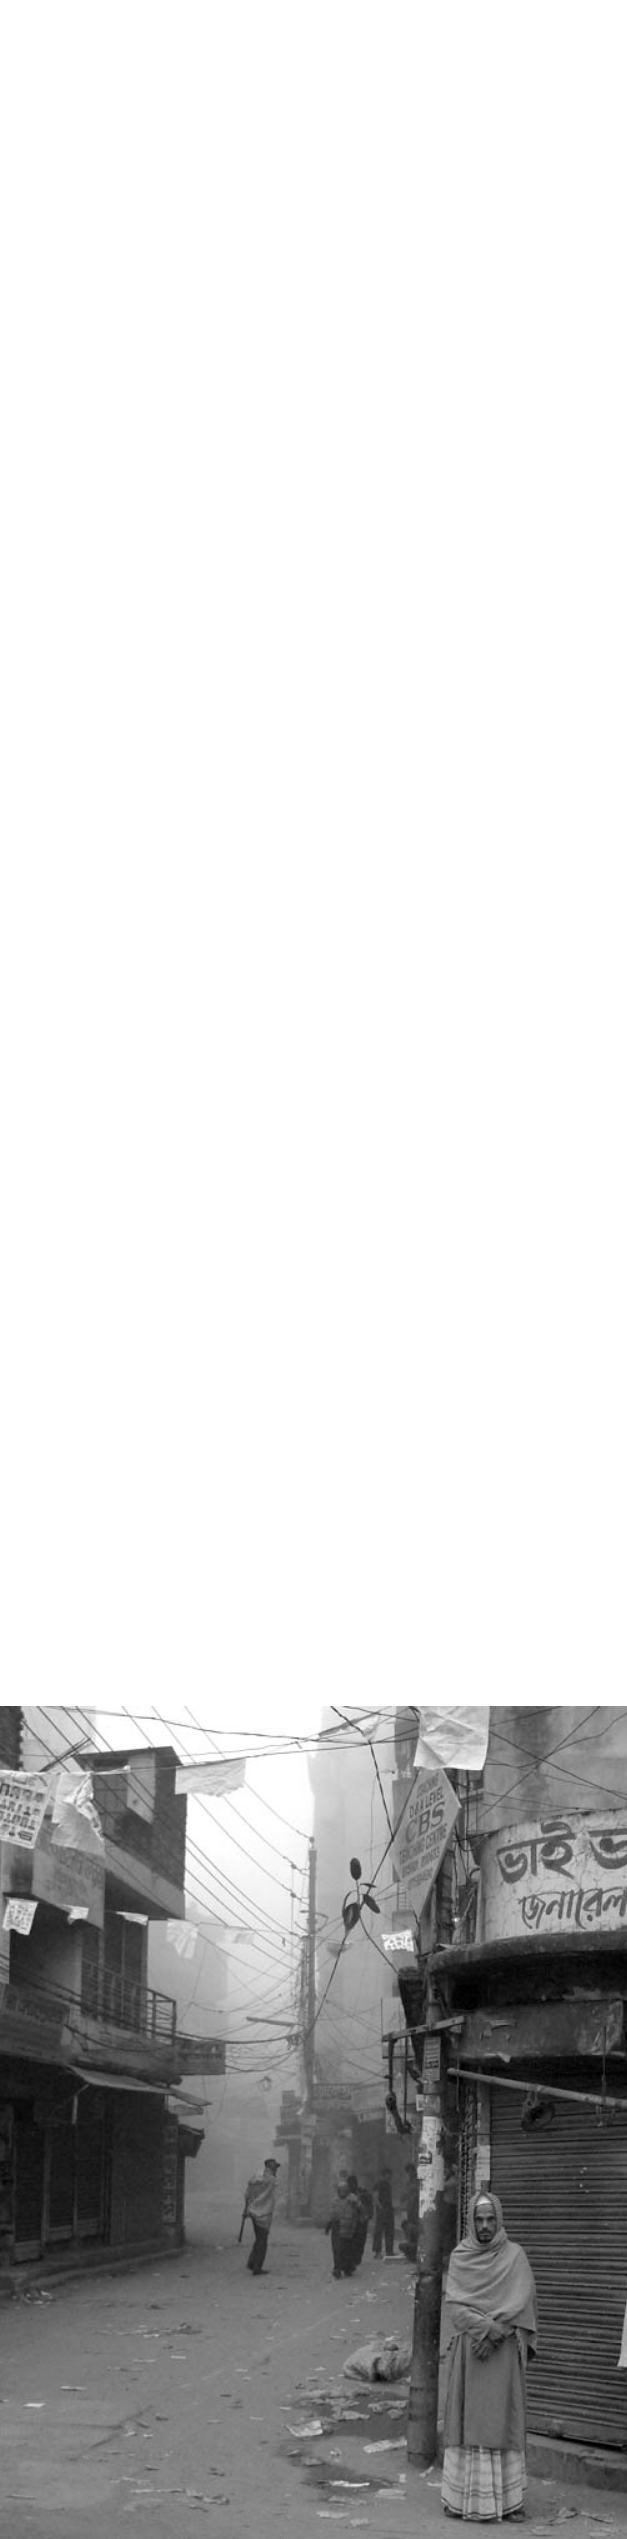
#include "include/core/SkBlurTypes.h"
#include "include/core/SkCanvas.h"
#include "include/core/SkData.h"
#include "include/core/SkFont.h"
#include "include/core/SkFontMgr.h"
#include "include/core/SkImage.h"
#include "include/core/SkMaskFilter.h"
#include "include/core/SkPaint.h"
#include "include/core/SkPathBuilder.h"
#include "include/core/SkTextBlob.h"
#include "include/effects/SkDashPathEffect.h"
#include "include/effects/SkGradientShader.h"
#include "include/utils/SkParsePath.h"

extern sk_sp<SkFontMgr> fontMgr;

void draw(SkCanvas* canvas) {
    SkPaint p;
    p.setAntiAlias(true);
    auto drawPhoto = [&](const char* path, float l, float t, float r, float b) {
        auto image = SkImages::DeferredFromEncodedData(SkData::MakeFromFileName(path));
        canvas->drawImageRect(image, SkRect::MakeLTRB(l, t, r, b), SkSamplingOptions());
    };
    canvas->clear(0xFFFFFFFF);
    drawPhoto("media/1.png", 0, 1706, 627, 2539);
}
